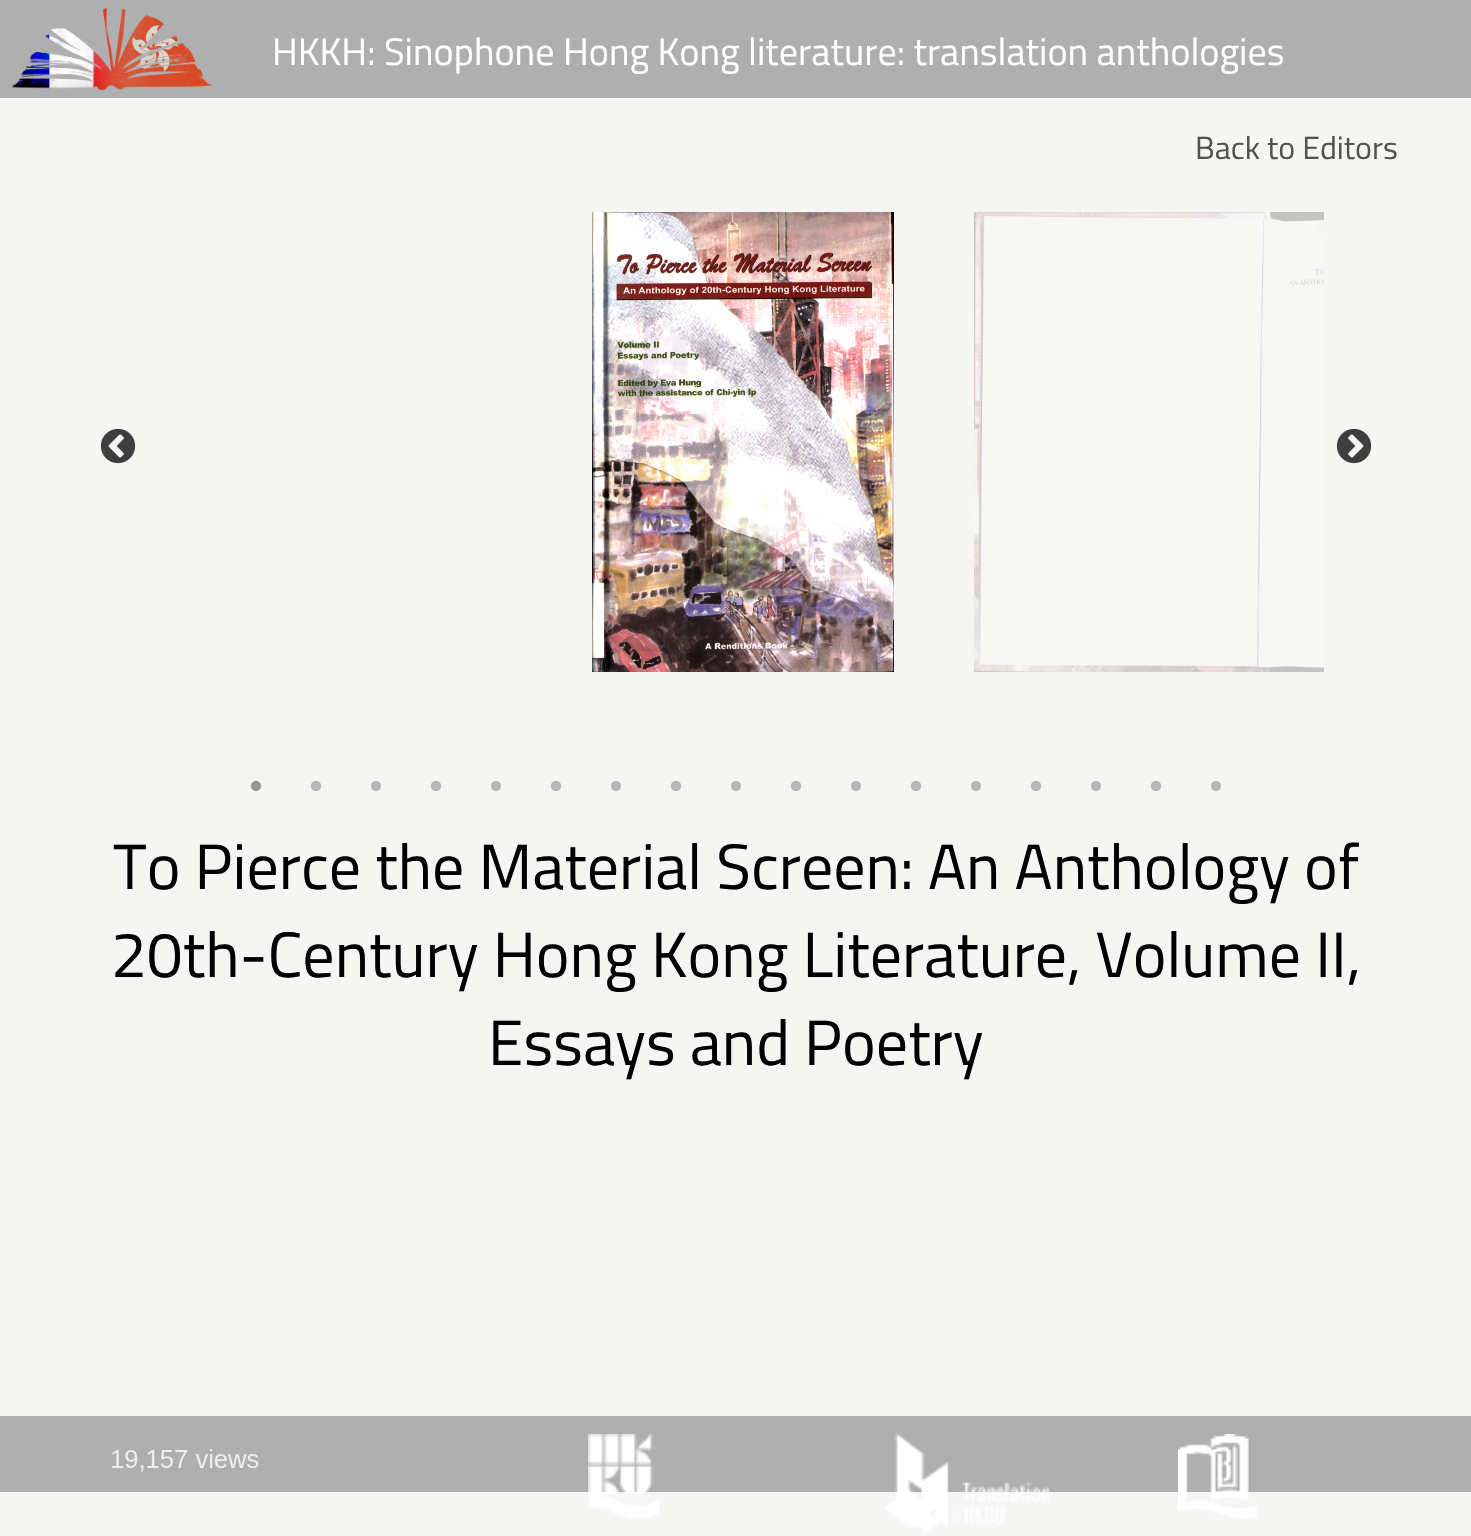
#include "include/core/SkBlurTypes.h"
#include "include/core/SkCanvas.h"
#include "include/core/SkData.h"
#include "include/core/SkFont.h"
#include "include/core/SkFontMgr.h"
#include "include/core/SkImage.h"
#include "include/core/SkMaskFilter.h"
#include "include/core/SkPaint.h"
#include "include/core/SkPathBuilder.h"
#include "include/core/SkTextBlob.h"
#include "include/effects/SkDashPathEffect.h"
#include "include/effects/SkGradientShader.h"
#include "include/utils/SkParsePath.h"

extern sk_sp<SkFontMgr> fontMgr;

void draw(SkCanvas* canvas) {
    SkPaint p;
    p.setAntiAlias(true);
    auto font = [&](const char* family, int weight, float size, bool italic = false) {
        SkFontStyle style(weight, SkFontStyle::kNormal_Width,
            italic ? SkFontStyle::kItalic_Slant : SkFontStyle::kUpright_Slant);
        SkFont result(fontMgr->matchFamilyStyle(family, style), size);
        result.setSubpixel(true);
        return result;
    };
    auto drawPhoto = [&](const char* path, float l, float t, float r, float b) {
        auto image = SkImages::DeferredFromEncodedData(SkData::MakeFromFileName(path));
        canvas->drawImageRect(image, SkRect::MakeLTRB(l, t, r, b), SkSamplingOptions());
    };
    canvas->clear(0xFFF5F5F4);
    p.setColor(0xFFAFAFAF);
    canvas->drawRect(SkRect::MakeLTRB(0, 0, 1471, 98), p);
    drawPhoto("media/1.png", 12, 8, 212, 90);
    auto font1 = font("Titillium Web", 400, 38.25f);
    p.setColor(0xFFFFFFFF);
    canvas->drawString("HKKH: Sinophone Hong Kong literature: translation anthologies", 272, 65, font1, p);
    auto font2 = font("Titillium Web", 400, 32);
    p.setColor(0xFF54514F);
    canvas->drawString("Back to Editors", 1195, 159, font2, p);
    drawPhoto("media/2.png", 100, 428, 136, 464);
    drawPhoto("media/3.png", 592, 212, 894, 672);
    drawPhoto("media/4.png", 974, 212, 1324, 672);
    drawPhoto("media/5.png", 1336, 428, 1372, 464);
    drawPhoto("media/6.png", 250, 780, 262, 792);
    drawPhoto("media/7.png", 311, 781, 321, 791);
    drawPhoto("media/7.png", 371, 781, 381, 791);
    drawPhoto("media/7.png", 431, 781, 441, 791);
    drawPhoto("media/7.png", 491, 781, 501, 791);
    drawPhoto("media/7.png", 551, 781, 561, 791);
    drawPhoto("media/7.png", 611, 781, 621, 791);
    drawPhoto("media/7.png", 671, 781, 681, 791);
    drawPhoto("media/7.png", 731, 781, 741, 791);
    drawPhoto("media/7.png", 791, 781, 801, 791);
    drawPhoto("media/7.png", 851, 781, 861, 791);
    drawPhoto("media/7.png", 911, 781, 921, 791);
    drawPhoto("media/7.png", 971, 781, 981, 791);
    drawPhoto("media/7.png", 1031, 781, 1041, 791);
    drawPhoto("media/7.png", 1091, 781, 1101, 791);
    drawPhoto("media/7.png", 1151, 781, 1161, 791);
    drawPhoto("media/7.png", 1211, 781, 1221, 791);
    auto font3 = font("Titillium Web", 400, 64);
    p.setColor(0xFF000000);
    {
        const struct { const char* s; float x, y; } items[] = {
            {"To Pierce the Material Screen: An Anthology of", 113, 889},
            {"20th-Century Hong Kong Literature, Volume II,", 111, 977},
            {"Essays and Poetry", 488, 1065},
        };
        for (auto [s, x, y] : items) {
            canvas->drawString(s, x, y, font3, p);
        }
    }
    p.setColor(0xFFAFAFAF);
    canvas->drawRect(SkRect::MakeLTRB(0, 1416, 1471, 1492), p);
    drawPhoto("media/8.png", 111, 1449, 259, 1472);
    drawPhoto("media/9.png", 588, 1434, 660, 1520);
    drawPhoto("media/10.png", 884, 1434, 1050, 1536);
    drawPhoto("media/11.png", 1178, 1434, 1257, 1519);
}
